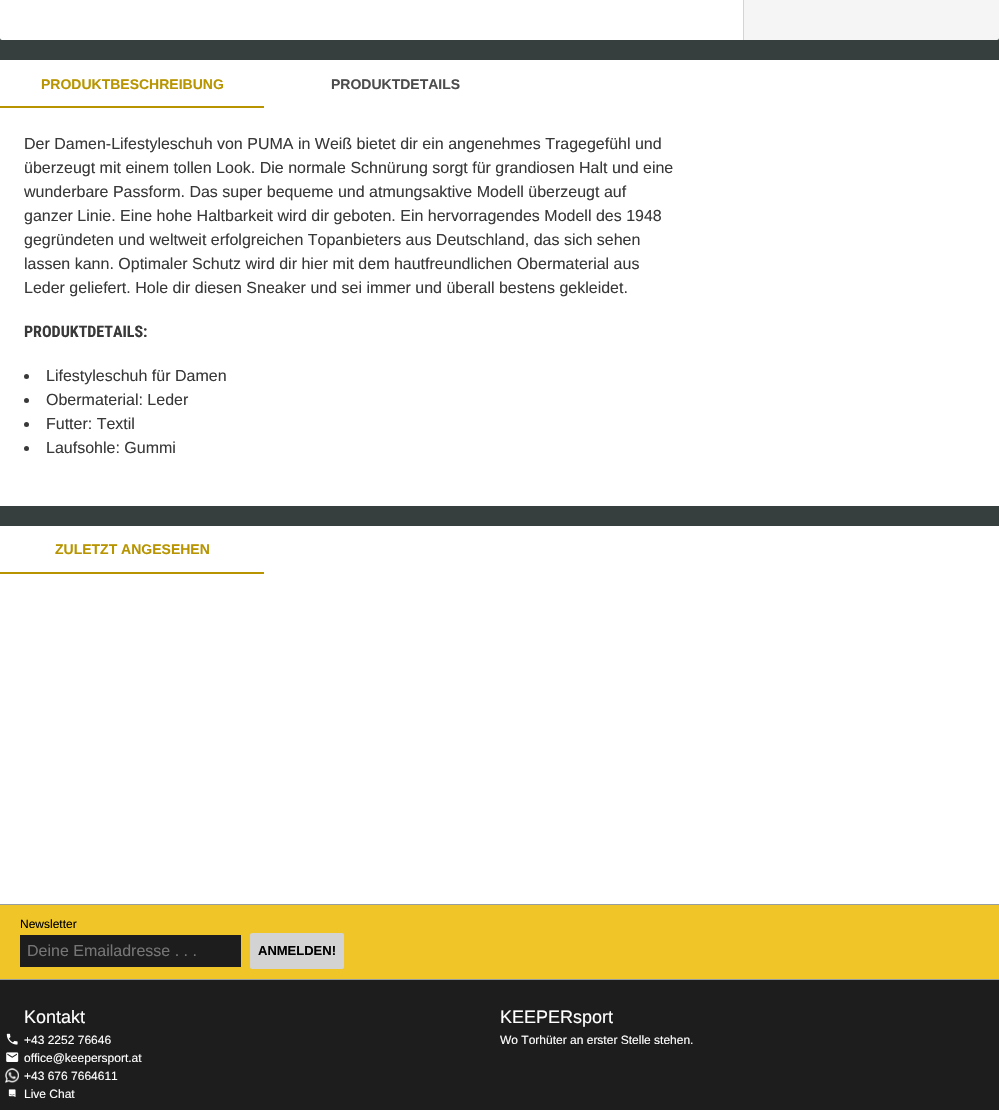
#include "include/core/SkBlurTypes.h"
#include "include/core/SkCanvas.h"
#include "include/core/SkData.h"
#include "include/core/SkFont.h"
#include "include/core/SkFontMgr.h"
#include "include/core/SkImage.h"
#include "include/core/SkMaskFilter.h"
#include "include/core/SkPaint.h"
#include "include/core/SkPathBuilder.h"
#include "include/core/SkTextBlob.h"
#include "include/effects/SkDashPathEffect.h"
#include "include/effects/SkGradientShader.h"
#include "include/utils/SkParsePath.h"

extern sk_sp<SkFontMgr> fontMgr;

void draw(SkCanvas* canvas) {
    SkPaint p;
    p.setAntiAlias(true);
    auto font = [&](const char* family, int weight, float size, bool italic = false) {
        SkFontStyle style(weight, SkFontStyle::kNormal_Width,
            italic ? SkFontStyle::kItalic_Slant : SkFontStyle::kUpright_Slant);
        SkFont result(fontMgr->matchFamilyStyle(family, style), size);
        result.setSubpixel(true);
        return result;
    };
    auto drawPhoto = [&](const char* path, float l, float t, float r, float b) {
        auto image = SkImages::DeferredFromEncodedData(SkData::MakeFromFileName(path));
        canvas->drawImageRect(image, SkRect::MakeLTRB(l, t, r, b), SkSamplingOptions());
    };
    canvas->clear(0xFF373E3E);
    p.setColor(0xFFFFFFFF);
    canvas->drawRoundRect(SkRect::MakeLTRB(0, -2, 999, 40), 2, 2, p);
    {
        const struct { float l, t, r, b; SkColor color; } items[] = {
            {744, 0, 999, 40, 0x0A000000},
            {743, 0, 744, 40, 0xFFD4D4D4},
            {0, 60, 999, 506, 0xFFFFFFFF},
            {0, 106, 264, 108, 0xFFB89500},
        };
        for (auto [l, t, r, b, color] : items) {
            p.setColor(color);
            canvas->drawRect(SkRect::MakeLTRB(l, t, r, b), p);
        }
    }
    auto font1 = font("Liberation Sans", 700, 14);
    canvas->drawString("PRODUKTBESCHREIBUNG", 41, 89, font1, p);
    p.setColor(0xFF4D4D4D);
    canvas->drawString("PRODUKTDETAILS", 331, 89, font1, p);
    auto font2 = font("Liberation Sans", 400, 16);
    p.setColor(0xFF393939);
    {
        const struct { const char* s; float x, y; } items[] = {
            {"Der Damen-Lifestyleschuh von PUMA in Weiß bietet dir ein angenehmes Tragegefühl und", 24, 149},
            {"überzeugt mit einem tollen Look. Die normale Schnürung sorgt für grandiosen Halt und eine", 24, 173},
            {"wunderbare Passform. Das super bequeme und atmungsaktive Modell überzeugt auf", 24, 197},
            {"ganzer Linie. Eine hohe Haltbarkeit wird dir geboten. Ein hervorragendes Modell des 1948", 24, 221},
            {"gegründeten und weltweit erfolgreichen Topanbieters aus Deutschland, das sich sehen", 24, 245},
            {"lassen kann. Optimaler Schutz wird dir hier mit dem hautfreundlichen Obermaterial aus", 24, 269},
            {"Leder geliefert. Hole dir diesen Sneaker und sei immer und überall bestens gekleidet.", 24, 293},
        };
        for (auto [s, x, y] : items) {
            canvas->drawString(s, x, y, font2, p);
        }
    }
    auto font3 = font("Roboto Condensed", 700, 16);
    canvas->drawString("PRODUKTDETAILS:", 24, 337, font3, p);
    canvas->drawCircle(26.5f, 376.5f, 2.5f, p);
    canvas->drawString("Lifestyleschuh für Damen", 46, 381, font2, p);
    canvas->drawCircle(26.5f, 400.5f, 2.5f, p);
    canvas->drawString("Obermaterial: Leder", 46, 405, font2, p);
    canvas->drawCircle(26.5f, 424.5f, 2.5f, p);
    canvas->drawString("Futter: Textil", 46, 429, font2, p);
    canvas->drawCircle(26.5f, 448.5f, 2.5f, p);
    canvas->drawString("Laufsohle: Gummi", 46, 453, font2, p);
    p.setColor(0xFFFFFFFF);
    canvas->drawRect(SkRect::MakeLTRB(0, 526, 999, 904), p);
    p.setColor(0xFFB89500);
    canvas->drawRect(SkRect::MakeLTRB(0, 572, 264, 574), p);
    canvas->drawString("ZULETZT ANGESEHEN", 55, 554, font1, p);
    {
        const struct { float l, t, r, b; SkColor color; } items[] = {
            {0, 980, 999, 1110, 0xFF1D1D1D},
            {0, 905, 999, 979, 0xFFEFC527},
            {0, 904, 999, 905, 0xFF979EA0},
        };
        for (auto [l, t, r, b, color] : items) {
            p.setColor(color);
            canvas->drawRect(SkRect::MakeLTRB(l, t, r, b), p);
        }
    }
    auto font4 = font("Liberation Sans", 400, 12);
    p.setColor(0xFF000000);
    canvas->drawString("Newsletter", 20, 928, font4, p);
    p.setColor(0xFF1D1D1D);
    canvas->drawRect(SkRect::MakeLTRB(20, 935, 241, 967), p);
    p.setColor(0xFF757575);
    canvas->drawString("Deine Emailadresse . . .", 27, 956, font2, p);
    p.setColor(0xFFD3D3D3);
    canvas->drawRoundRect(SkRect::MakeLTRB(250, 933, 344, 969), 2, 2, p);
    auto font5 = font("Liberation Sans", 700, 13);
    p.setColor(0xFF000000);
    canvas->drawString("ANMELDEN!", 258, 955, font5, p);
    p.setColor(0xFF979EA0);
    canvas->drawRect(SkRect::MakeLTRB(0, 979, 999, 980), p);
    auto font6 = font("Liberation Sans", 400, 18);
    p.setColor(0xFFFFFFFF);
    canvas->drawString("Kontakt", 24, 1023, font6, p);
    drawPhoto("media/1.png", 6, 1033, 18, 1045);
    canvas->drawString("+43 2252 76646", 24, 1044, font4, p);
    drawPhoto("media/2.png", 6, 1052, 19, 1062);
    canvas->drawString("office@keepersport.at", 24, 1062, font4, p);
    drawPhoto("media/3.png", 5, 1068, 19, 1083);
    canvas->drawString("+43 676 7664611", 24, 1080, font4, p);
    drawPhoto("media/4.png", 8, 1089, 16, 1097);
    canvas->drawString("Live Chat", 24, 1098, font4, p);
    canvas->drawString("KEEPERsport", 500, 1023, font6, p);
    canvas->drawString("Wo Torhüter an erster Stelle stehen.", 500, 1044, font4, p);
}
